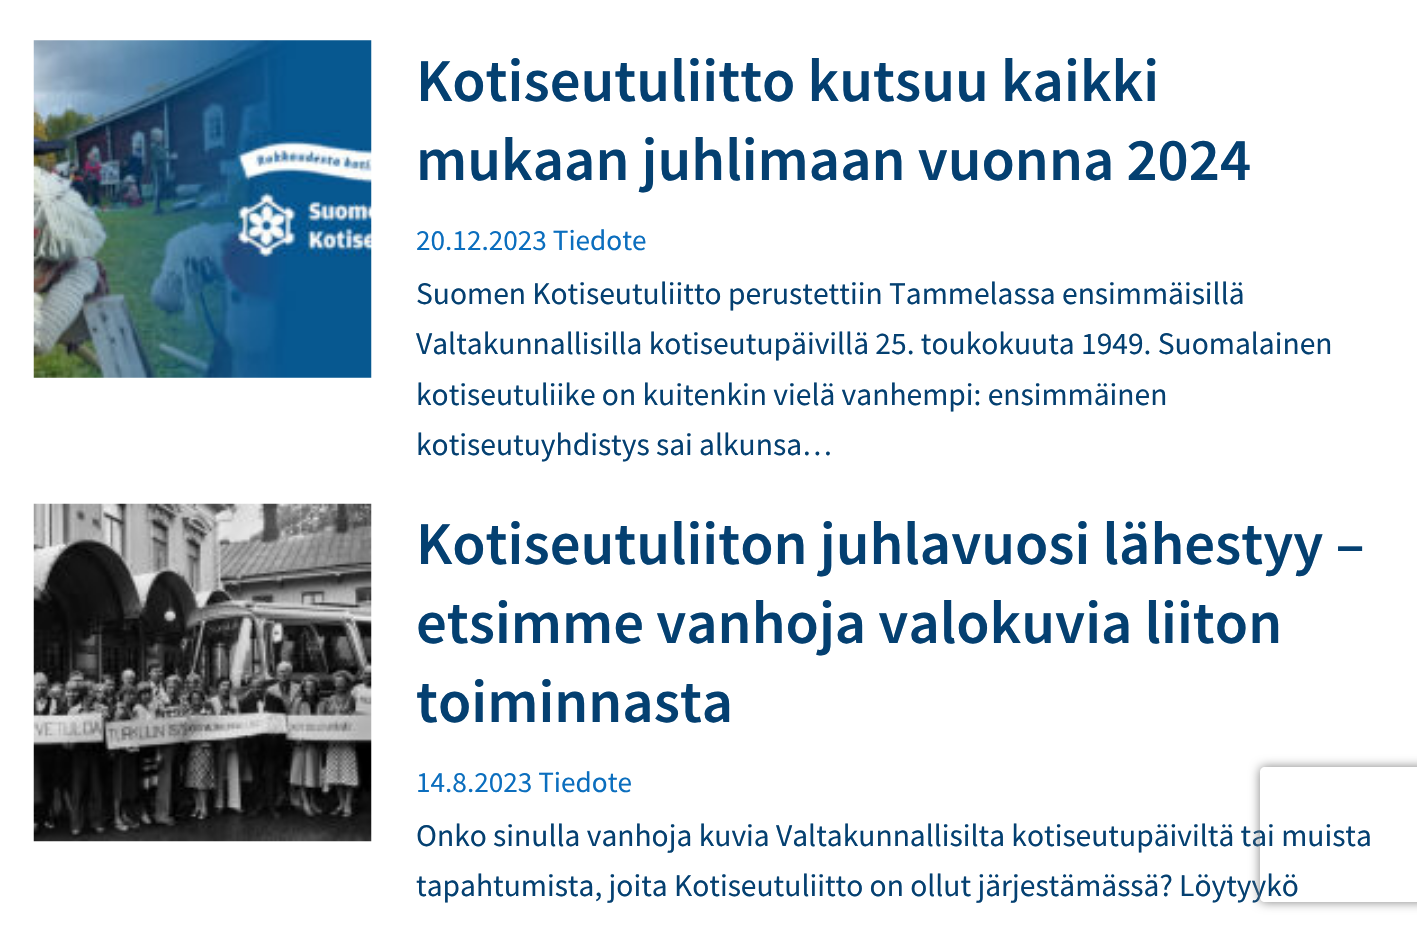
#include "include/core/SkBlurTypes.h"
#include "include/core/SkCanvas.h"
#include "include/core/SkData.h"
#include "include/core/SkFont.h"
#include "include/core/SkFontMgr.h"
#include "include/core/SkImage.h"
#include "include/core/SkMaskFilter.h"
#include "include/core/SkPaint.h"
#include "include/core/SkPathBuilder.h"
#include "include/core/SkTextBlob.h"
#include "include/effects/SkDashPathEffect.h"
#include "include/effects/SkGradientShader.h"
#include "include/utils/SkParsePath.h"

extern sk_sp<SkFontMgr> fontMgr;

void draw(SkCanvas* canvas) {
    SkPaint p;
    p.setAntiAlias(true);
    auto font = [&](const char* family, int weight, float size, bool italic = false) {
        SkFontStyle style(weight, SkFontStyle::kNormal_Width,
            italic ? SkFontStyle::kItalic_Slant : SkFontStyle::kUpright_Slant);
        SkFont result(fontMgr->matchFamilyStyle(family, style), size);
        result.setSubpixel(true);
        return result;
    };
    auto drawPhoto = [&](const char* path, float l, float t, float r, float b) {
        auto image = SkImages::DeferredFromEncodedData(SkData::MakeFromFileName(path));
        canvas->drawImageRect(image, SkRect::MakeLTRB(l, t, r, b), SkSamplingOptions());
    };
    canvas->clear(0xFFFFFFFF);
    drawPhoto("media/1.png", 33, 40, 372, 378);
    auto font1 = font("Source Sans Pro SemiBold", 600, 60.75f);
    p.setColor(0xFF044071);
    canvas->drawString("Kotiseutuliitto kutsuu kaikki", 416, 101, font1, p);
    canvas->drawString("mukaan juhlimaan vuonna 2024", 416, 180, font1, p);
    auto font2 = font("Source Sans Pro", 400, 29.25f);
    p.setColor(0xFF0B6EBE);
    canvas->drawString("20.12.2023 Tiedote", 416, 250, font2, p);
    auto font3 = font("Source Sans Pro", 400, 31.5f);
    p.setColor(0xFF044071);
    {
        const struct { const char* s; float x, y; } items[] = {
            {"Suomen Kotiseutuliitto perustettiin Tammelassa ensimmäisillä", 416, 304},
            {"Valtakunnallisilla kotiseutupäivillä 25. toukokuuta 1949. Suomalainen", 416, 354},
            {"kotiseutuliike on kuitenkin vielä vanhempi: ensimmäinen", 416, 405},
            {"kotiseutuyhdistys sai alkunsa…", 416, 455},
        };
        for (auto [s, x, y] : items) {
            canvas->drawString(s, x, y, font3, p);
        }
    }
    drawPhoto("media/2.png", 33, 503, 372, 842);
    {
        const struct { const char* s; float x, y; } items[] = {
            {"Kotiseutuliiton juhlavuosi lähestyy –", 416, 564},
            {"etsimme vanhoja valokuvia liiton", 416, 643},
            {"toiminnasta", 416, 722},
        };
        for (auto [s, x, y] : items) {
            canvas->drawString(s, x, y, font1, p);
        }
    }
    p.setColor(0xFF0B6EBE);
    canvas->drawString("14.8.2023 Tiedote", 416, 792, font2, p);
    p.setColor(0xFF044071);
    canvas->drawString("Onko sinulla vanhoja kuvia Valtakunnallisilta kotiseutupäiviltä tai muista", 416, 846, font3, p);
    canvas->drawString("tapahtumista, joita Kotiseutuliitto on ollut järjestämässä? Löytyykö", 416, 896, font3, p);
    canvas->save();
    canvas->clipPath(SkPathBuilder(SkPathFillType::kEvenOdd).moveTo(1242, 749).lineTo(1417, 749).lineTo(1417, 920).lineTo(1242, 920).close().moveTo(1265, 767).lineTo(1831, 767).cubicTo(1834, 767, 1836, 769, 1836, 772).lineTo(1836, 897).cubicTo(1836, 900, 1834, 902, 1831, 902).lineTo(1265, 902).cubicTo(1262, 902, 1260, 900, 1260, 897).lineTo(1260, 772).cubicTo(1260, 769, 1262, 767, 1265, 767).close().detach(), true);
    p.setColor(0xFF808080);
    p.setMaskFilter(SkMaskFilter::MakeBlur(kNormal_SkBlurStyle, 5.5f));
    canvas->drawRoundRect(SkRect::MakeLTRB(1260, 767, 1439, 902), 5, 5, p);
    p.setMaskFilter(nullptr);
    canvas->restore();
}
